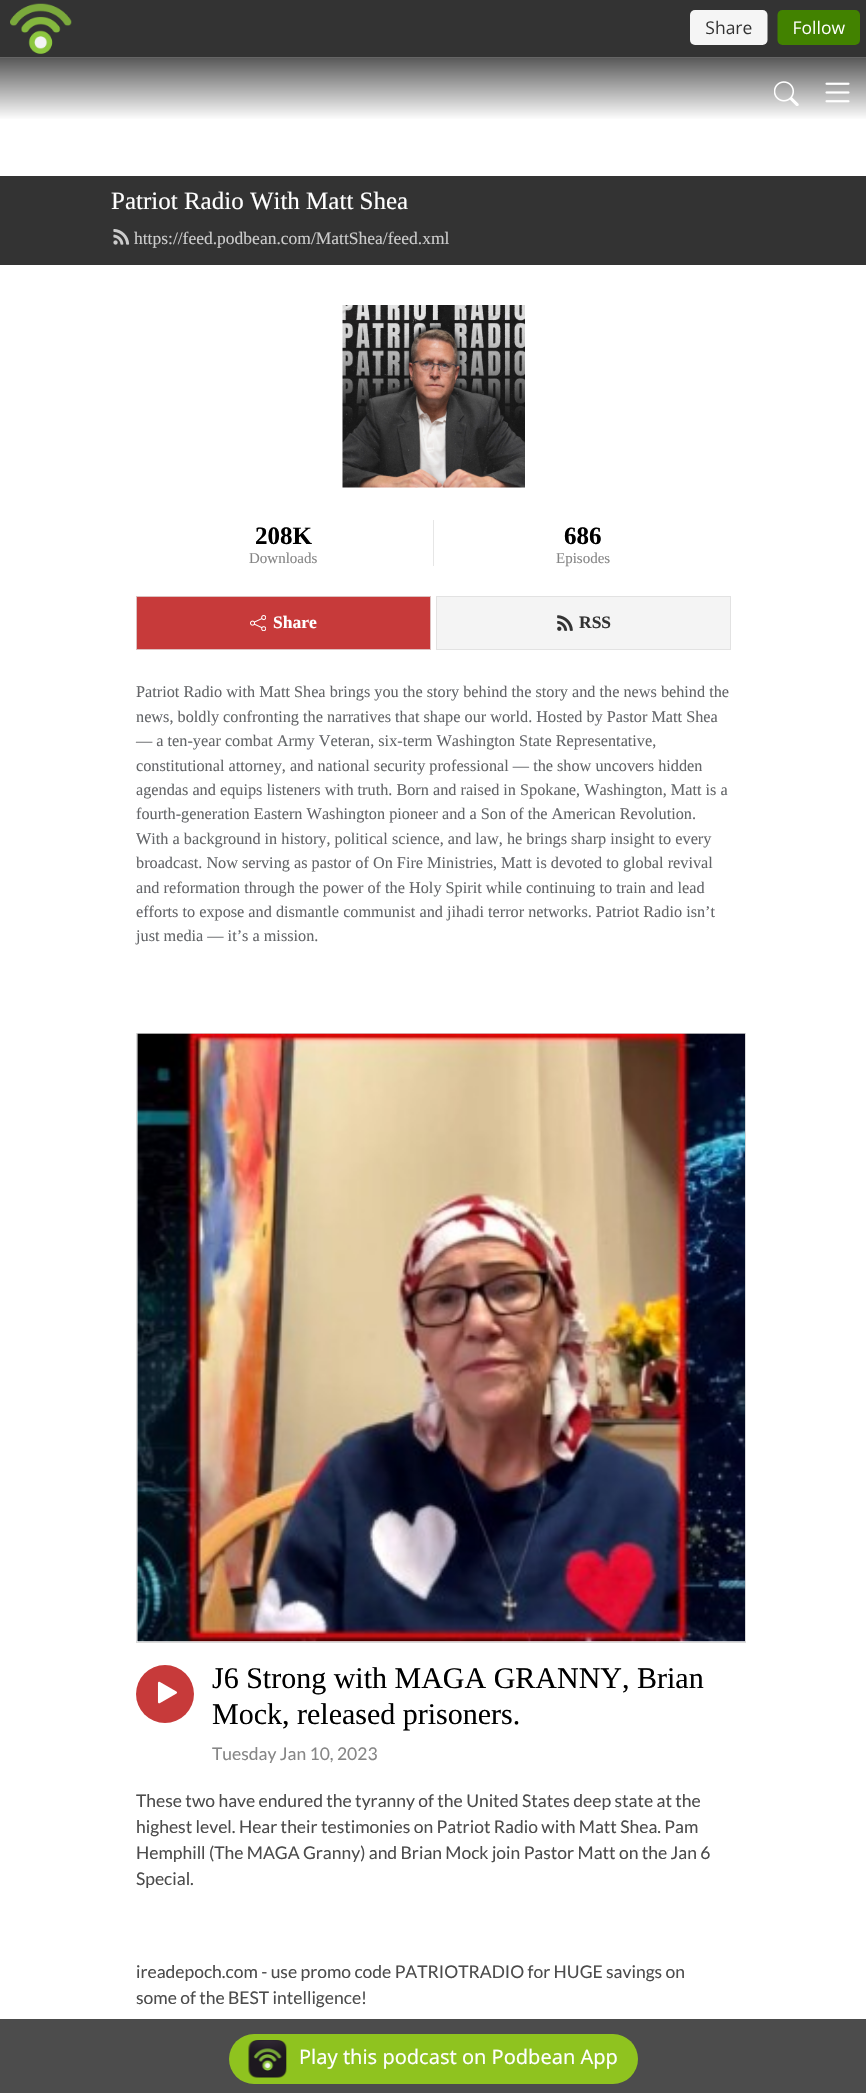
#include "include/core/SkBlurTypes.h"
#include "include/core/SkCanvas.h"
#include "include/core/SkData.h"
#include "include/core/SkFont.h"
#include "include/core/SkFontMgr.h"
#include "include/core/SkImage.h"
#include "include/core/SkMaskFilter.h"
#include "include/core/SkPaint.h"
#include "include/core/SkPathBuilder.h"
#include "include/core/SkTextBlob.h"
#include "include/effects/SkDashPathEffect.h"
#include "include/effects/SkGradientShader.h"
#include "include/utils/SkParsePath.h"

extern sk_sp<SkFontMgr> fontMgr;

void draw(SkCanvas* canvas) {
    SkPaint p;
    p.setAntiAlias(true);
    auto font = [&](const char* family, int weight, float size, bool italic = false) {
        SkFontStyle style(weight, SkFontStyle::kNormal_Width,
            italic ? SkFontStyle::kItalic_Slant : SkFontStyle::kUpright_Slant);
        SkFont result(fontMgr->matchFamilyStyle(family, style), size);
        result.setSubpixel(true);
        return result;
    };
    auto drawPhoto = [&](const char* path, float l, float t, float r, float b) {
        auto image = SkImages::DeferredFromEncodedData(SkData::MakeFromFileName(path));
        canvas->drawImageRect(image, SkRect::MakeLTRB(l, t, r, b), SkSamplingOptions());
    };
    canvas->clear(0xFFFFFFFF);
    p.setColor(0xFF333333);
    canvas->drawRect(SkRect::MakeLTRB(0, 0, 866, 3), p);
    drawPhoto("media/1.png", 0, 3, 866, 58);
    {
        const SkColor colors[] = {0xFFFFFFFF, 0xFF595959};
        const float stops[] = {0, 1};
        const SkPoint ends[] = {{433, 120}, {433, 58}};
        p.setShader(SkGradientShader::MakeLinear(ends, colors, stops, 2, SkTileMode::kClamp));
        p.setAlpha(255);
    }
    canvas->drawRect(SkRect::MakeLTRB(0, 58, 866, 119), p);
    drawPhoto("media/2.png", 774, 81, 799, 106);
    drawPhoto("media/3.png", 825, 82, 850, 103);
    p.setShader(nullptr);
    p.setColor(0xFF333333);
    canvas->drawRect(SkRect::MakeLTRB(0, 176, 866, 265), p);
    auto font1 = font("Liberation Serif", 400, 25);
    p.setColor(0xFFFFFFFF);
    canvas->drawString("Patriot Radio With Matt Shea", 111, 209, font1, p);
    drawPhoto("media/4.png", 113, 229, 130, 245);
    auto font2 = font("Liberation Serif", 400, 17.5f);
    p.setColor(0xFFCCCCCC);
    canvas->drawString("https://feed.podbean.com/MattShea/feed.xml", 134, 244, font2, p);
    drawPhoto("media/5.png", 342, 305, 525, 488);
    auto font3 = font("Liberation Serif", 700, 25);
    p.setColor(0xFF000000);
    canvas->drawString("208K", 255, 544, font3, p);
    auto font4 = font("Liberation Serif", 400, 15);
    p.setColor(0xFF868686);
    canvas->drawString("Downloads", 249, 563, font4, p);
    p.setColor(0xFFE6E6E6);
    canvas->drawRect(SkRect::MakeLTRB(433, 520, 434, 566), p);
    p.setColor(0xFF000000);
    canvas->drawString("686", 564, 544, font3, p);
    p.setColor(0xFF868686);
    canvas->drawString("Episodes", 556, 563, font4, p);
    p.setColor(0xFFC73A3A);
    canvas->drawRect(SkRect::MakeLTRB(136.5f, 596.5f, 430.5f, 649.5f), p);
    p.setStyle(SkPaint::kStroke_Style);
    p.setStrokeWidth(1);
    p.setColor(0xFFDDC0C0);
    canvas->drawRect(SkRect::MakeLTRB(136.5f, 596.5f, 430.5f, 649.5f), p);
    drawPhoto("media/6.png", 250, 615, 266, 631);
    auto font5 = font("Liberation Serif", 700, 17.5f);
    p.setStyle(SkPaint::kFill_Style);
    p.setColor(0xFFFFFFFF);
    canvas->drawString("Share", 273, 628, font5, p);
    p.setColor(0xFFF4F4F4);
    canvas->drawRect(SkRect::MakeLTRB(436.5f, 596.5f, 730.5f, 649.5f), p);
    p.setStyle(SkPaint::kStroke_Style);
    p.setColor(0xFFE2E2E2);
    canvas->drawRect(SkRect::MakeLTRB(436.5f, 596.5f, 730.5f, 649.5f), p);
    drawPhoto("media/7.png", 557, 615, 573, 631);
    p.setStyle(SkPaint::kFill_Style);
    p.setColor(0xFF333333);
    canvas->drawString("RSS", 579, 628, font5, p);
    auto font6 = font("Liberation Serif", 400, 16.25f);
    p.setColor(0xFF646669);
    {
        const struct { const char* s; float x, y; } items[] = {
            {"Patriot Radio with Matt Shea brings you the story behind the story and the news behind the", 136, 697},
            {"news, boldly confronting the narratives that shape our world. Hosted by Pastor Matt Shea", 136, 722},
            {"— a ten-year combat Army Veteran, six-term Washington State Representative,", 136, 746},
            {"constitutional attorney, and national security professional — the show uncovers hidden", 136, 771},
            {"agendas and equips listeners with truth. Born and raised in Spokane, Washington, Matt is a", 136, 795},
            {"fourth-generation Eastern Washington pioneer and a Son of the American Revolution.", 136, 819},
            {"With a background in history, political science, and law, he brings sharp insight to every", 136, 844},
            {"broadcast. Now serving as pastor of On Fire Ministries, Matt is devoted to global revival", 136, 868},
            {"and reformation through the power of the Holy Spirit while continuing to train and lead", 136, 893},
            {"efforts to expose and dismantle communist and jihadi terror networks. Patriot Radio isn’t", 136, 917},
            {"just media — it’s a mission.", 136, 941},
        };
        for (auto [s, x, y] : items) {
            canvas->drawString(s, x, y, font6, p);
        }
    }
    p.setStyle(SkPaint::kStroke_Style);
    p.setColor(0xFFDADADA);
    canvas->drawRect(SkRect::MakeLTRB(136.5f, 1033.5f, 745.5f, 1642.5f), p);
    drawPhoto("media/8.png", 137, 1033, 745, 1642);
    p.setStyle(SkPaint::kFill_Style);
    p.setColor(0xFFC73A3A);
    canvas->drawCircle(165, 1694, 29, p);
    drawPhoto("media/9.png", 157, 1681, 177, 1704);
    auto font7 = font("Liberation Serif", 400, 30);
    p.setColor(0xFF000000);
    canvas->drawString("J6 Strong with MAGA GRANNY, Brian", 212, 1688, font7, p);
    canvas->drawString("Mock, released prisoners.", 212, 1724, font7, p);
    auto font8 = font("Lato", 400, 17.5f);
    p.setColor(0xFF868686);
    canvas->drawString("Tuesday Jan 10, 2023", 212, 1760, font8, p);
    p.setColor(0xFF4C4C4C);
    {
        const struct { const char* s; float x, y; } items[] = {
            {"These two have endured the tyranny of the United States deep state at the", 136, 1807},
            {"highest level. Hear their testimonies on Patriot Radio with Matt Shea. Pam", 136, 1833},
            {"Hemphill (The MAGA Granny) and Brian Mock join Pastor Matt on the Jan 6", 136, 1859},
            {"Special.", 136, 1885},
            {"ireadepoch.com - use promo code PATRIOTRADIO for HUGE savings on", 136, 1978},
            {"some of the BEST intelligence!", 136, 2004},
        };
        for (auto [s, x, y] : items) {
            canvas->drawString(s, x, y, font8, p);
        }
    }
    p.setColor(0xB3000000);
    canvas->drawRect(SkRect::MakeLTRB(0, 2019, 866, 2093), p);
    p.setColor(0xFF8FC31F);
    canvas->drawRoundRect(SkRect::MakeLTRB(229, 2034, 638, 2084), 25, 25, p);
    drawPhoto("media/10.png", 248, 2040, 287, 2078);
    auto font9 = font("Noto Sans", 400, 20);
    p.setColor(0xFFFFFFFF);
    canvas->drawString("Play this podcast on Podbean App", 299, 2064, font9, p);
}
